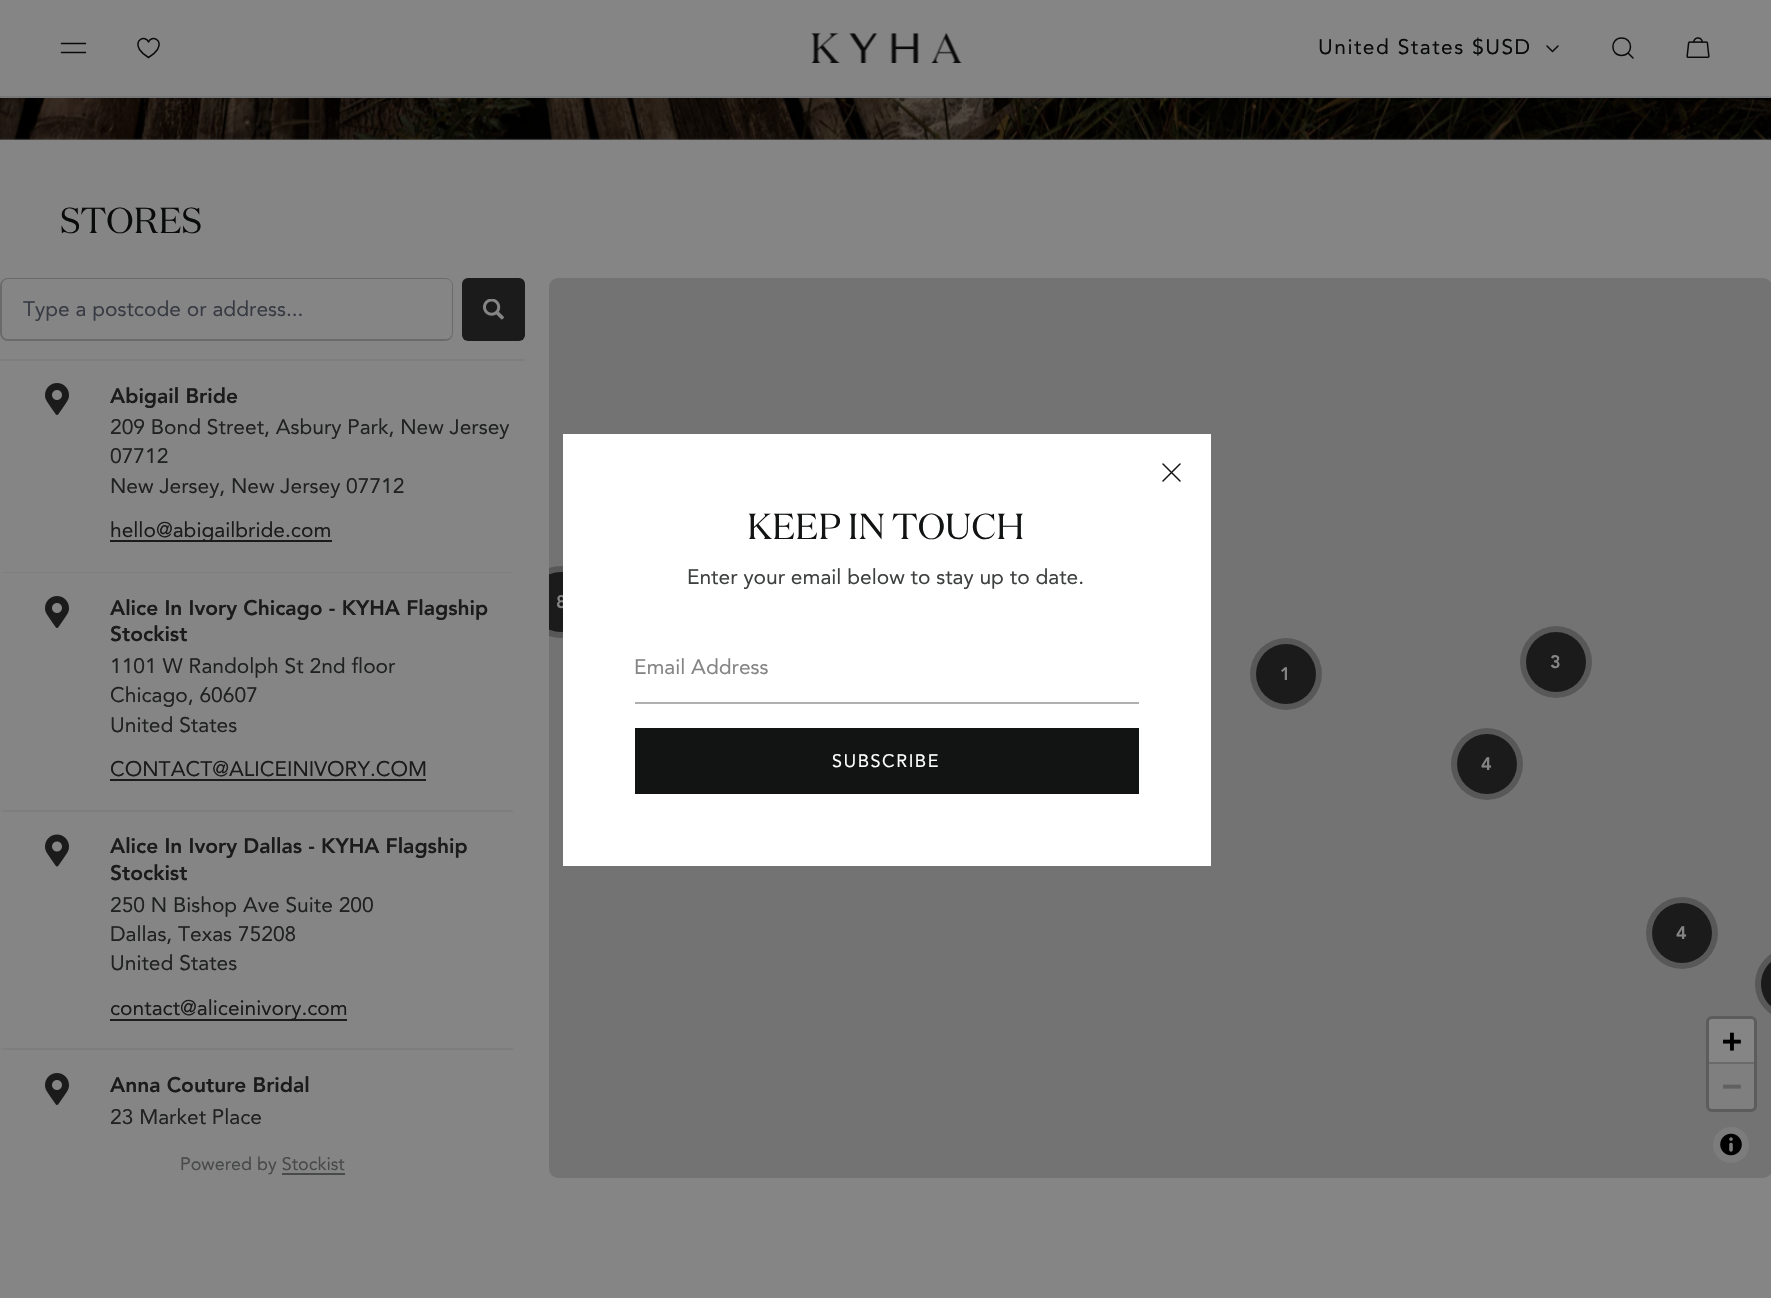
#include "include/core/SkBlurTypes.h"
#include "include/core/SkCanvas.h"
#include "include/core/SkData.h"
#include "include/core/SkFont.h"
#include "include/core/SkFontMgr.h"
#include "include/core/SkImage.h"
#include "include/core/SkMaskFilter.h"
#include "include/core/SkPaint.h"
#include "include/core/SkPathBuilder.h"
#include "include/core/SkTextBlob.h"
#include "include/effects/SkDashPathEffect.h"
#include "include/effects/SkGradientShader.h"
#include "include/utils/SkParsePath.h"

extern sk_sp<SkFontMgr> fontMgr;

void draw(SkCanvas* canvas) {
    SkPaint p;
    p.setAntiAlias(true);
    auto font = [&](const char* family, int weight, float size, bool italic = false) {
        SkFontStyle style(weight, SkFontStyle::kNormal_Width,
            italic ? SkFontStyle::kItalic_Slant : SkFontStyle::kUpright_Slant);
        SkFont result(fontMgr->matchFamilyStyle(family, style), size);
        result.setSubpixel(true);
        return result;
    };
    auto drawTracked = [&](const char* s, float x, float y, const SkFont& font, const SkPaint& ink, float letter, float word) {
        std::vector<SkGlyphID> glyphs(font.countText(s, strlen(s), SkTextEncoding::kUTF8));
        std::vector<float> xs(glyphs.size());
        font.textToGlyphs(s, strlen(s), SkTextEncoding::kUTF8, glyphs);
        font.getXPos(glyphs, xs, x);
        float extra = 0;
        for (size_t i = 0; i < glyphs.size(); i++) {
            xs[i] += extra;
            extra += letter + word * (glyphs[i] == font.unicharToGlyph(' '));
        }
        canvas->drawTextBlob(SkTextBlob::MakeFromPosHGlyphs(glyphs, xs, y, font), 0, 0, ink);
    };
    auto drawPhoto = [&](const char* path, float l, float t, float r, float b) {
        auto image = SkImages::DeferredFromEncodedData(SkData::MakeFromFileName(path));
        canvas->drawImageRect(image, SkRect::MakeLTRB(l, t, r, b), SkSamplingOptions());
    };
    canvas->clear(0xFF858585);
    p.setStyle(SkPaint::kStroke_Style);
    p.setStrokeWidth(1.5f);
    p.setStrokeCap(SkPaint::kRound_Cap);
    p.setStrokeJoin(SkPaint::kRound_Join);
    p.setColor(0xFF090A0A);
    canvas->drawPath(SkPathBuilder().moveTo(61.5f, 43.5f).lineTo(85.5f, 43.5f).moveTo(61.5f, 52.5f).lineTo(85.5f, 52.5f).detach(), p);
    canvas->drawPath(SkPathBuilder().moveTo(148.5f, 57.5f).cubicTo(145, 55.5f, 141.5f, 52.5f, 139.5f, 49.5f).cubicTo(133.5f, 39.5f, 145.5f, 35, 148.5f, 42).cubicTo(151.5f, 35, 163.5f, 39.5f, 157.5f, 49.5f).cubicTo(155.5f, 52.5f, 152, 55.5f, 148.5f, 57.5f).close().detach(), p);
    drawPhoto("media/1.png", 811, 33, 962, 63);
    auto font1 = font("Avenir", 400, 21);
    p.setStyle(SkPaint::kFill_Style);
    drawTracked("United States $USD", 1318, 54, font1, p, 1.5f, 0);
    p.setStyle(SkPaint::kStroke_Style);
    canvas->drawPath(SkPathBuilder().moveTo(1558, 46).lineTo(1552.5f, 51.5f).lineTo(1547, 46).detach(), p);
    canvas->drawPath(SkPathBuilder().moveTo(1621.5f, 55.5f).cubicTo(1633.5f, 55.5f, 1633.5f, 38, 1621.5f, 38).cubicTo(1610, 38, 1610, 55.5f, 1621.5f, 55.5f).close().moveTo(1628, 53).lineTo(1633, 58).detach(), p);
    drawPhoto("media/2.png", 1686, 37, 1710, 58);
    p.setStyle(SkPaint::kFill_Style);
    p.setColor(0xFF77787A);
    canvas->drawRect(SkRect::MakeLTRB(0, 96, 1771, 98), p);
    drawPhoto("media/3.png", 0, 98, 1771, 140);
    {
        const SkColor colors[] = {0x00000000, 0x3D000000};
        const float stops[] = {0, 1};
        const SkPoint ends[] = {{886, -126}, {886, 140}};
        p.setShader(SkGradientShader::MakeLinear(ends, colors, stops, 2, SkTileMode::kClamp));
        p.setAlpha(255);
    }
    canvas->drawRect(SkRect::MakeLTRB(0, 98, 1771, 140), p);
    auto font2 = font("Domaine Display", 400, 36);
    p.setShader(nullptr);
    p.setColor(0xFF090A0A);
    canvas->drawString("STORES", 60, 233, font2, p);
    p.setStyle(SkPaint::kStroke_Style);
    p.setStrokeWidth(2);
    p.setStrokeCap(SkPaint::kButt_Cap);
    p.setStrokeJoin(SkPaint::kMiter_Join);
    p.setColor(0xFF6A6A6A);
    canvas->drawRoundRect(SkRect::MakeLTRB(1, 279, 452, 340), 7, 7, p);
    p.setStyle(SkPaint::kFill_Style);
    p.setColor(0xFF858585);
    canvas->drawRoundRect(SkRect::MakeLTRB(2, 279, 452, 339), 6, 6, p);
    p.setColor(0xFF383B43);
    canvas->drawString("Type a postcode or address...", 23, 316, font1, p);
    p.setColor(0xFF1B1B1B);
    canvas->drawRoundRect(SkRect::MakeLTRB(462, 278, 525, 341), 6, 6, p);
    drawPhoto("media/4.png", 483, 299, 504, 320);
    p.setColor(0xFF7E7E7E);
    canvas->drawRect(SkRect::MakeLTRB(0, 359, 525, 361), p);
    drawPhoto("media/5.png", 45, 383, 69, 415);
    auto font3 = font("Avenir", 900, 21);
    p.setColor(0xFF1B1B1B);
    canvas->drawString("Abigail Bride", 110, 403, font3, p);
    p.setColor(0xFF202121);
    {
        const struct { const char* s; float x, y; } items[] = {
            {"209 Bond Street, Asbury Park, New Jersey", 110, 434},
            {"07712", 110, 463},
            {"New Jersey, New Jersey 07712", 110, 493},
        };
        for (auto [s, x, y] : items) {
            canvas->drawString(s, x, y, font1, p);
        }
    }
    p.setColor(0xFF1B1B1B);
    canvas->drawRect(SkRect::MakeLTRB(110, 540, 332, 542), p);
    canvas->drawString("hello@abigailbride.com", 110, 537, font1, p);
    p.setColor(0xFF7E7E7E);
    canvas->drawPath(SkPathBuilder().moveTo(0, 572).lineTo(513, 572).lineTo(513, 573).lineTo(4, 573).close().detach(), p);
    drawPhoto("media/5.png", 45, 596, 69, 628);
    p.setColor(0xFF1B1B1B);
    canvas->drawString("Alice In Ivory Chicago - KYHA Flagship", 110, 615, font3, p);
    canvas->drawString("Stockist", 110, 641, font3, p);
    p.setColor(0xFF202121);
    {
        const struct { const char* s; float x, y; } items[] = {
            {"1101 W Randolph St 2nd floor", 110, 673},
            {"Chicago, 60607", 110, 702},
            {"United States", 110, 732},
        };
        for (auto [s, x, y] : items) {
            canvas->drawString(s, x, y, font1, p);
        }
    }
    p.setColor(0xFF1B1B1B);
    canvas->drawString("CONTACT@ALICEINIVORY.COM", 110, 776, font1, p);
    canvas->drawRect(SkRect::MakeLTRB(110, 779, 426, 781), p);
    p.setColor(0xFF7E7E7E);
    canvas->drawPath(SkPathBuilder().moveTo(0, 810).lineTo(513, 810).lineTo(513, 812).lineTo(4, 812).close().detach(), p);
    drawPhoto("media/6.png", 45, 834, 69, 867);
    p.setColor(0xFF1B1B1B);
    canvas->drawString("Alice In Ivory Dallas - KYHA Flagship", 110, 853, font3, p);
    canvas->drawString("Stockist", 110, 880, font3, p);
    p.setColor(0xFF202121);
    {
        const struct { const char* s; float x, y; } items[] = {
            {"250 N Bishop Ave Suite 200", 110, 912},
            {"Dallas, Texas 75208", 110, 941},
            {"United States", 110, 970},
        };
        for (auto [s, x, y] : items) {
            canvas->drawString(s, x, y, font1, p);
        }
    }
    p.setColor(0xFF1B1B1B);
    canvas->drawRect(SkRect::MakeLTRB(110, 1019, 347, 1021), p);
    canvas->drawString("contact@aliceinivory.com", 110, 1015, font1, p);
    p.setColor(0xFF7E7E7E);
    canvas->drawPath(SkPathBuilder().moveTo(0, 1048).lineTo(513, 1048).lineTo(513, 1050).lineTo(4, 1050).close().detach(), p);
    drawPhoto("media/5.png", 45, 1073, 69, 1105);
    p.setColor(0xFF1B1B1B);
    canvas->drawString("Anna Couture Bridal", 110, 1092, font3, p);
    p.setColor(0xFF202121);
    canvas->drawString("23 Market Place", 110, 1124, font1, p);
    auto font4 = font("Avenir", 400, 18);
    p.setColor(0xFF484949);
    canvas->drawString("Powered by Stockist", 180, 1170, font4, p);
    canvas->drawRect(SkRect::MakeLTRB(282, 1173, 345, 1175), p);
    p.setColor(0xFF737373);
    canvas->drawRoundRect(SkRect::MakeLTRB(549, 278, 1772, 1178), 9, 9, p);
    canvas->save();
    canvas->clipRect(SkRect::MakeLTRB(549, 278, 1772, 1178));
    p.setColor(0xFF585858);
    canvas->drawCircle(561, 602, 36, p);
    p.setColor(0xFF1B1B1B);
    canvas->drawCircle(561, 602, 30, p);
    canvas->restore();
    auto font5 = font("Avenir", 900, 18);
    p.setColor(0xFF858585);
    canvas->drawString("8", 556, 608, font5, p);
    p.setColor(0xFF585858);
    canvas->drawCircle(1556, 662, 36, p);
    p.setColor(0xFF1B1B1B);
    canvas->drawCircle(1556, 662, 30, p);
    p.setColor(0xFF858585);
    canvas->drawString("3", 1550, 668, font5, p);
    p.setColor(0xFF585858);
    canvas->drawCircle(1286, 674, 36, p);
    p.setColor(0xFF1B1B1B);
    canvas->drawCircle(1286, 674, 30, p);
    p.setColor(0xFF858585);
    canvas->drawString("1", 1280, 680, font5, p);
    p.setColor(0xFF585858);
    canvas->drawCircle(1487, 764, 36, p);
    p.setColor(0xFF1B1B1B);
    canvas->drawCircle(1487, 764, 30, p);
    p.setColor(0xFF858585);
    canvas->drawString("4", 1481, 770, font5, p);
    p.setColor(0xFF585858);
    canvas->drawCircle(1682, 933, 36, p);
    p.setColor(0xFF1B1B1B);
    canvas->drawCircle(1682, 933, 30, p);
    p.setColor(0xFF858585);
    canvas->drawString("4", 1676, 939, font5, p);
    p.setColor(0xFF585858);
    canvas->drawPath(SkPathBuilder().moveTo(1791, 948).lineTo(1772, 948).lineTo(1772, 1020).lineTo(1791, 1020).cubicTo(1771, 1020, 1755, 1004, 1755, 984).cubicTo(1755, 964, 1771, 948, 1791, 948).close().detach(), p);
    p.setColor(0xFF1B1B1B);
    canvas->drawPath(SkPathBuilder().moveTo(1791, 954).lineTo(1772, 954).lineTo(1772, 1014).lineTo(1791, 1014).cubicTo(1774.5f, 1014, 1761, 1000.5f, 1761, 984).cubicTo(1761, 967.5f, 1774.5f, 954, 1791, 954).close().detach(), p);
    p.setStyle(SkPaint::kStroke_Style);
    p.setStrokeWidth(3);
    p.setColor(0xFF5C5C5C);
    canvas->drawRoundRect(SkRect::MakeLTRB(1707.5f, 1017.5f, 1755.5f, 1110.5f), 4.5f, 4.5f, p);
    p.setStyle(SkPaint::kFill_Style);
    p.setColor(0xFF858585);
    canvas->drawPath(SkPathBuilder().moveTo(1712, 1019).lineTo(1751, 1019).cubicTo(1752.5f, 1019, 1754, 1020.5f, 1754, 1022).lineTo(1754, 1064).lineTo(1709, 1064).lineTo(1709, 1022).cubicTo(1709, 1020.5f, 1710.5f, 1019, 1712, 1019).close().detach(), p);
    p.setColor(0xFF6A6A6A);
    canvas->drawRect(SkRect::MakeLTRB(1709, 1062, 1754, 1064), p);
    auto font6 = font("DejaVu Sans Mono", 700, 33);
    p.setColor(0xFF000000);
    canvas->drawString("+", 1722, 1052, font6, p);
    p.setColor(0xFF7F7F7F);
    canvas->drawPath(SkPathBuilder().moveTo(1709, 1064).lineTo(1754, 1064).lineTo(1754, 1106).cubicTo(1754, 1107.5f, 1752.5f, 1109, 1751, 1109).lineTo(1712, 1109).cubicTo(1710.5f, 1109, 1709, 1107.5f, 1709, 1106).close().detach(), p);
    p.setColor(0xFF616161);
    canvas->drawString("−", 1722, 1097, font6, p);
    p.setColor(0xFF7C7C7C);
    canvas->drawCircle(1731, 1145, 18, p);
    drawPhoto("media/7.png", 1720, 1133, 1742, 1156);
    p.setColor(0xFFFFFFFF);
    canvas->drawRect(SkRect::MakeLTRB(563, 434, 1211, 866), p);
    p.setStyle(SkPaint::kStroke_Style);
    p.setStrokeWidth(1.5f);
    p.setStrokeCap(SkPaint::kRound_Cap);
    p.setStrokeJoin(SkPaint::kRound_Join);
    p.setColor(0xFF121313);
    canvas->drawPath(SkPathBuilder().moveTo(1180, 464).lineTo(1163, 481).moveTo(1180, 481).lineTo(1163, 464).detach(), p);
    p.setStyle(SkPaint::kFill_Style);
    canvas->drawString("KEEP IN TOUCH", 747, 539, font2, p);
    p.setColor(0xFF3E4040);
    canvas->drawString("Enter your email below to stay up to date.", 687, 584, font1, p);
    p.setColor(0xFF858585);
    canvas->drawString("Email Address", 634, 674, font1, p);
    p.setColor(0xFFB0B0B0);
    canvas->drawRect(SkRect::MakeLTRB(635, 702, 1139, 704), p);
    p.setColor(0xFF121313);
    canvas->drawRect(SkRect::MakeLTRB(635, 728, 1139, 794), p);
    p.setColor(0xFFFFFFFF);
    drawTracked("SUBSCRIBE", 832, 767, font4, p, 1.5f, 0);
}
